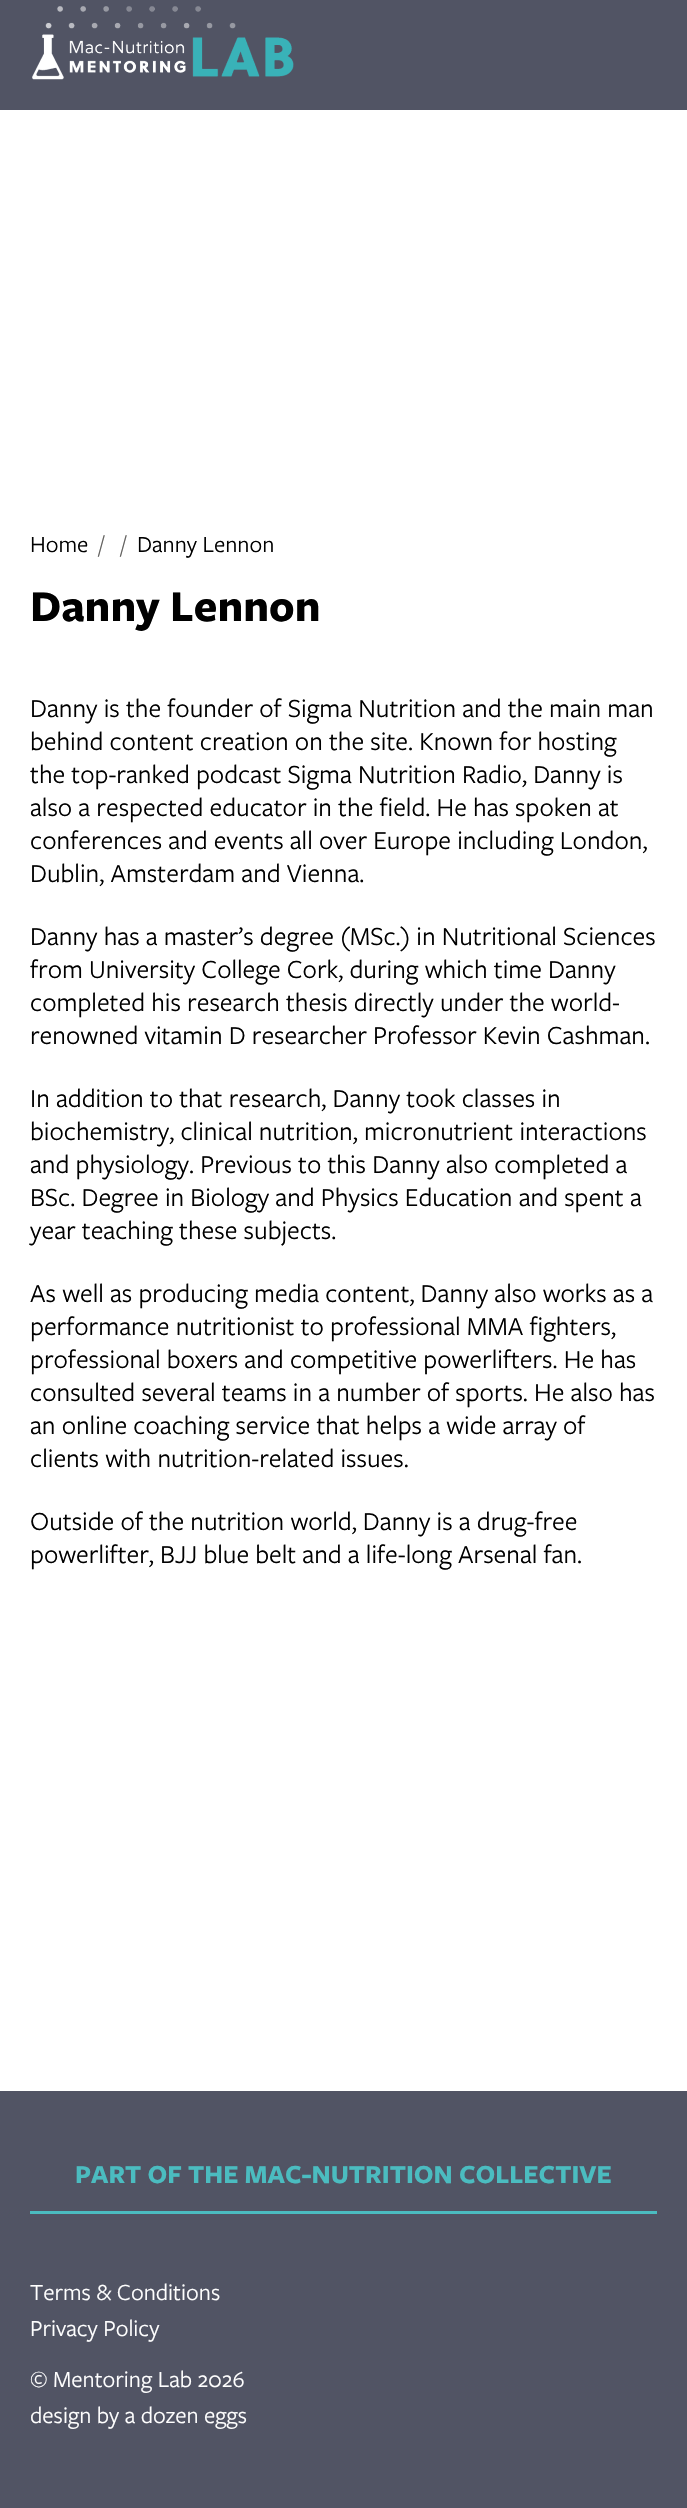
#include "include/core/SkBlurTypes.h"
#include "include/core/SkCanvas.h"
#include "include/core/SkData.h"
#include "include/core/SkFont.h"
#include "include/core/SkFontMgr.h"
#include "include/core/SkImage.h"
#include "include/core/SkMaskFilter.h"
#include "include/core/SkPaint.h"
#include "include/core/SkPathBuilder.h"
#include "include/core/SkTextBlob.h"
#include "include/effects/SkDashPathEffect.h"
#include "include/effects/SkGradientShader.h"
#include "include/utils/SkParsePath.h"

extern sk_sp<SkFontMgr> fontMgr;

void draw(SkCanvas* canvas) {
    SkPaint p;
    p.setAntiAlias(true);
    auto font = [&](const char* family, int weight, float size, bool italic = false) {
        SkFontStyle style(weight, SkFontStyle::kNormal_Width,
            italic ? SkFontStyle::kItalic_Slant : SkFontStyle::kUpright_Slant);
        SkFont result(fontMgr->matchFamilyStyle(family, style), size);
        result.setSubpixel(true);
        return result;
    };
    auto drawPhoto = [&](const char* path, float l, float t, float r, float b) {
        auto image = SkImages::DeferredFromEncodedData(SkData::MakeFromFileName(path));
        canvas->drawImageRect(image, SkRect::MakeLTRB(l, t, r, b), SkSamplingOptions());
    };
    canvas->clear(0xFFFFFFFF);
    p.setColor(0xFF515464);
    canvas->drawRect(SkRect::MakeLTRB(0, 0, 687, 110), p);
    drawPhoto("media/1.png", 32, 6, 294, 80);
    auto font1 = font("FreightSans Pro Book", 400, 24);
    p.setColor(0xFF000000);
    canvas->drawString("Home", 30, 552, font1, p);
    p.setColor(0xFF636260);
    canvas->drawString("/", 99, 552, font1, p);
    canvas->drawString("/", 121, 552, font1, p);
    p.setColor(0xFF000000);
    canvas->drawString("Danny Lennon", 137, 552, font1, p);
    auto font2 = font("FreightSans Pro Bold", 700, 45.75f);
    canvas->drawString("Danny Lennon", 30, 621, font2, p);
    auto font3 = font("FreightSans Pro Book", 400, 27);
    {
        const struct { const char* s; float x, y; } items[] = {
            {"Danny is the founder of Sigma Nutrition and the main man", 30, 717},
            {"behind content creation on the site. Known for hosting", 30, 750},
            {"the top-ranked podcast Sigma Nutrition Radio, Danny is", 30, 783},
            {"also a respected educator in the field. He has spoken at", 30, 816},
            {"conferences and events all over Europe including London,", 30, 849},
            {"Dublin, Amsterdam and Vienna.", 30, 882},
            {"Danny has a master’s degree (MSc.) in Nutritional Sciences", 30, 945},
            {"from University College Cork, during which time Danny", 30, 978},
            {"completed his research thesis directly under the world-", 30, 1011},
            {"renowned vitamin D researcher Professor Kevin Cashman.", 30, 1044},
            {"In addition to that research, Danny took classes in", 30, 1107},
            {"biochemistry, clinical nutrition, micronutrient interactions", 30, 1140},
            {"and physiology. Previous to this Danny also completed a", 30, 1173},
            {"BSc. Degree in Biology and Physics Education and spent a", 30, 1206},
            {"year teaching these subjects.", 30, 1239},
            {"As well as producing media content, Danny also works as a", 30, 1302},
            {"performance nutritionist to professional MMA fighters,", 30, 1335},
            {"professional boxers and competitive powerlifters. He has", 30, 1368},
            {"consulted several teams in a number of sports. He also has", 30, 1401},
            {"an online coaching service that helps a wide array of", 30, 1434},
            {"clients with nutrition-related issues.", 30, 1467},
            {"Outside of the nutrition world, Danny is a drug-free", 30, 1530},
            {"powerlifter, BJJ blue belt and a life-long Arsenal fan.", 30, 1563},
        };
        for (auto [s, x, y] : items) {
            canvas->drawString(s, x, y, font3, p);
        }
    }
    p.setColor(0xFF515464);
    canvas->drawRect(SkRect::MakeLTRB(0, 2091, 687, 2508), p);
    auto font4 = font("FreightSans Pro Bold", 700, 27);
    p.setColor(0xFF4BBCC0);
    canvas->drawString("PART OF THE MAC-NUTRITION COLLECTIVE", 75, 2183, font4, p);
    canvas->drawRect(SkRect::MakeLTRB(30, 2211, 657, 2214), p);
    p.setColor(0xFFFFFFFF);
    {
        const struct { const char* s; float x, y; } items[] = {
            {"Terms & Conditions", 30, 2300},
            {"Privacy Policy", 30, 2336},
            {"© Mentoring Lab 2026", 30, 2387},
            {"design by a dozen eggs", 30, 2423},
        };
        for (auto [s, x, y] : items) {
            canvas->drawString(s, x, y, font1, p);
        }
    }
}
